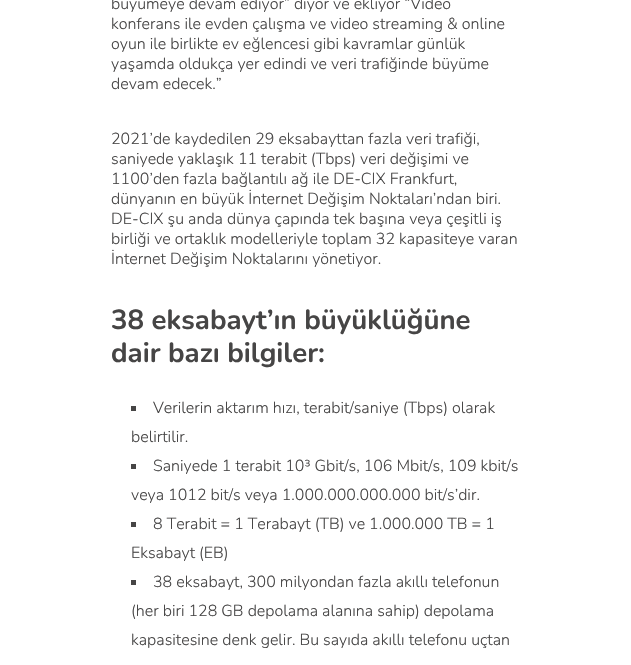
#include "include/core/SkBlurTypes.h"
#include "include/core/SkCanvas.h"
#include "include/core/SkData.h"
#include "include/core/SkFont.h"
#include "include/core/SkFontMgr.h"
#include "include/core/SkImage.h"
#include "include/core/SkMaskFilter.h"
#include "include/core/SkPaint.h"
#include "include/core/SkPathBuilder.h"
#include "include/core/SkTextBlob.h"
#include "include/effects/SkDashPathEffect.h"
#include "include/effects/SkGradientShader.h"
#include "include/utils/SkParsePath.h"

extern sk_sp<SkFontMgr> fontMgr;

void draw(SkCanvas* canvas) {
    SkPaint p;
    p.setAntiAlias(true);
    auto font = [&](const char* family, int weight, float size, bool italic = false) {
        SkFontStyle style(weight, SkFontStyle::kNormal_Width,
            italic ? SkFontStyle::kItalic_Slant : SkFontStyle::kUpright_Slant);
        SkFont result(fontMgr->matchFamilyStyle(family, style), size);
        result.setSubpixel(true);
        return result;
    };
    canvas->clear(0xFFFFFFFF);
    auto font1 = font("Nunito", 300, 16);
    p.setColor(0xFF464545);
    {
        const struct { const char* s; float x, y; } items[] = {
            {"büyümeye devam ediyor” diyor ve ekliyor “Video", 111, 9},
            {"konferans ile evden çalışma ve video streaming & online", 111, 29},
            {"oyun ile birlikte ev eğlencesi gibi kavramlar günlük", 111, 49},
            {"yaşamda oldukça yer edindi ve veri trafiğinde büyüme", 111, 69},
            {"devam edecek.”", 111, 89},
            {"2021’de kaydedilen 29 eksabayttan fazla veri trafiği,", 111, 144},
            {"saniyede yaklaşık 11 terabit (Tbps) veri değişimi ve", 111, 164},
            {"1100’den fazla bağlantılı ağ ile DE-CIX Frankfurt,", 111, 184},
            {"dünyanın en büyük İnternet Değişim Noktaları’ndan biri.", 111, 204},
            {"DE-CIX şu anda dünya çapında tek başına veya çeşitli iş", 111, 224},
            {"birliği ve ortaklık modelleriyle toplam 32 kapasiteye varan", 111, 244},
            {"İnternet Değişim Noktalarını yönetiyor.", 111, 264},
        };
        for (auto [s, x, y] : items) {
            canvas->drawString(s, x, y, font1, p);
        }
    }
    auto font2 = font("Nunito", 700, 27.6f);
    canvas->drawString("38 eksabayt’ın büyüklüğüne", 111, 329, font2, p);
    canvas->drawString("dair bazı bilgiler:", 111, 362, font2, p);
    canvas->drawRect(SkRect::MakeLTRB(131, 406, 136, 411), p);
    canvas->drawString("Verilerin aktarım hızı, terabit/saniye (Tbps) olarak", 153, 413, font1, p);
    canvas->drawString("belirtilir.", 131, 442, font1, p);
    canvas->drawRect(SkRect::MakeLTRB(131, 464, 136, 469), p);
    canvas->drawString("Saniyede 1 terabit 10³ Gbit/s, 106 Mbit/s, 109 kbit/s", 153, 471, font1, p);
    canvas->drawString("veya 1012 bit/s veya 1.000.000.000.000 bit/s’dir.", 131, 500, font1, p);
    canvas->drawRect(SkRect::MakeLTRB(131, 522, 136, 527), p);
    canvas->drawString("8 Terabit = 1 Terabayt (TB) ve 1.000.000 TB = 1", 153, 529, font1, p);
    canvas->drawString("Eksabayt (EB)", 131, 558, font1, p);
    canvas->drawRect(SkRect::MakeLTRB(131, 580, 136, 585), p);
    {
        const struct { const char* s; float x, y; } items[] = {
            {"38 eksabayt, 300 milyondan fazla akıllı telefonun", 153, 587},
            {"(her biri 128 GB depolama alanına sahip) depolama", 131, 616},
            {"kapasitesine denk gelir. Bu sayıda akıllı telefonu uçtan", 131, 645},
        };
        for (auto [s, x, y] : items) {
            canvas->drawString(s, x, y, font1, p);
        }
    }
}
